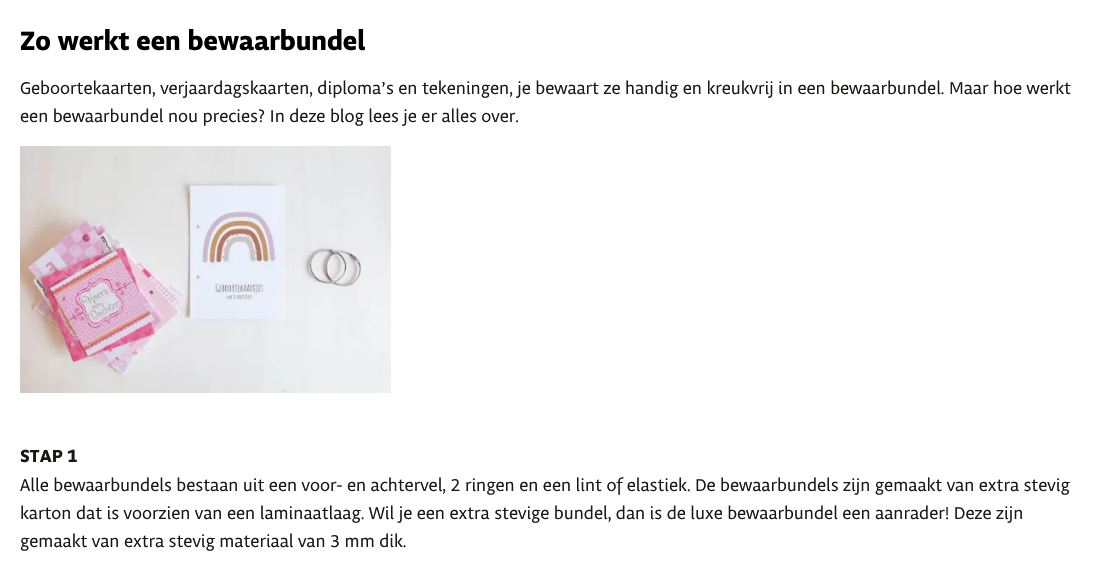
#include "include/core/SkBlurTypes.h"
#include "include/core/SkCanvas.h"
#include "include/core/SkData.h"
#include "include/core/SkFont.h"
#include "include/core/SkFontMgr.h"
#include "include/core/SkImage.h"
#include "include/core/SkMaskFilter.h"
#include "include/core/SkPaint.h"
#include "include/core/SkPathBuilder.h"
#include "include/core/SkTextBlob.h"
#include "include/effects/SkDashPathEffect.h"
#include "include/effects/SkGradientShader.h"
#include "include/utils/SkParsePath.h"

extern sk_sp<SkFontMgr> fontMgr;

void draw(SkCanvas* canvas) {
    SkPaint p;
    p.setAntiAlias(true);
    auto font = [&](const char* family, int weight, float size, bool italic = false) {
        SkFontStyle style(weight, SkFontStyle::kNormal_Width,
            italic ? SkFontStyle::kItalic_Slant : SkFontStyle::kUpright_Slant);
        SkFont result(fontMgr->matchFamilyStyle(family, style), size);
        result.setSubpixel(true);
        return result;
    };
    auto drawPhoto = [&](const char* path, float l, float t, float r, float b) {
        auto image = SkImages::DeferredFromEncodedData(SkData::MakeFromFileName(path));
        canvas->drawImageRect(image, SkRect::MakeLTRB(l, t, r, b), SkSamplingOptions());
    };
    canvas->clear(0xFFFFFFFF);
    auto font1 = font("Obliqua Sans", 700, 27);
    p.setColor(0xFF000000);
    canvas->drawString("Zo werkt een bewaarbundel", 20, 50, font1, p);
    auto font2 = font("Obliqua Sans", 400, 18);
    p.setColor(0xFF181816);
    canvas->drawString("Geboortekaarten, verjaardagskaarten, diploma’s en tekeningen, je bewaart ze handig en kreukvrij in een bewaarbundel. Maar hoe werkt", 20, 94, font2, p);
    canvas->drawString("een bewaarbundel nou precies? In deze blog lees je er alles over.", 20, 122, font2, p);
    drawPhoto("media/1.png", 20, 146, 391, 393);
    auto font3 = font("Obliqua Sans", 700, 18);
    canvas->drawString("STAP 1", 20, 462, font3, p);
    {
        const struct { const char* s; float x, y; } items[] = {
            {"Alle bewaarbundels bestaan uit een voor- en achtervel, 2 ringen en een lint of elastiek. De bewaarbundels zijn gemaakt van extra stevig", 20, 491},
            {"karton dat is voorzien van een laminaatlaag. Wil je een extra stevige bundel, dan is de luxe bewaarbundel een aanrader! Deze zijn", 20, 519},
            {"gemaakt van extra stevig materiaal van 3 mm dik.", 20, 547},
        };
        for (auto [s, x, y] : items) {
            canvas->drawString(s, x, y, font2, p);
        }
    }
}
